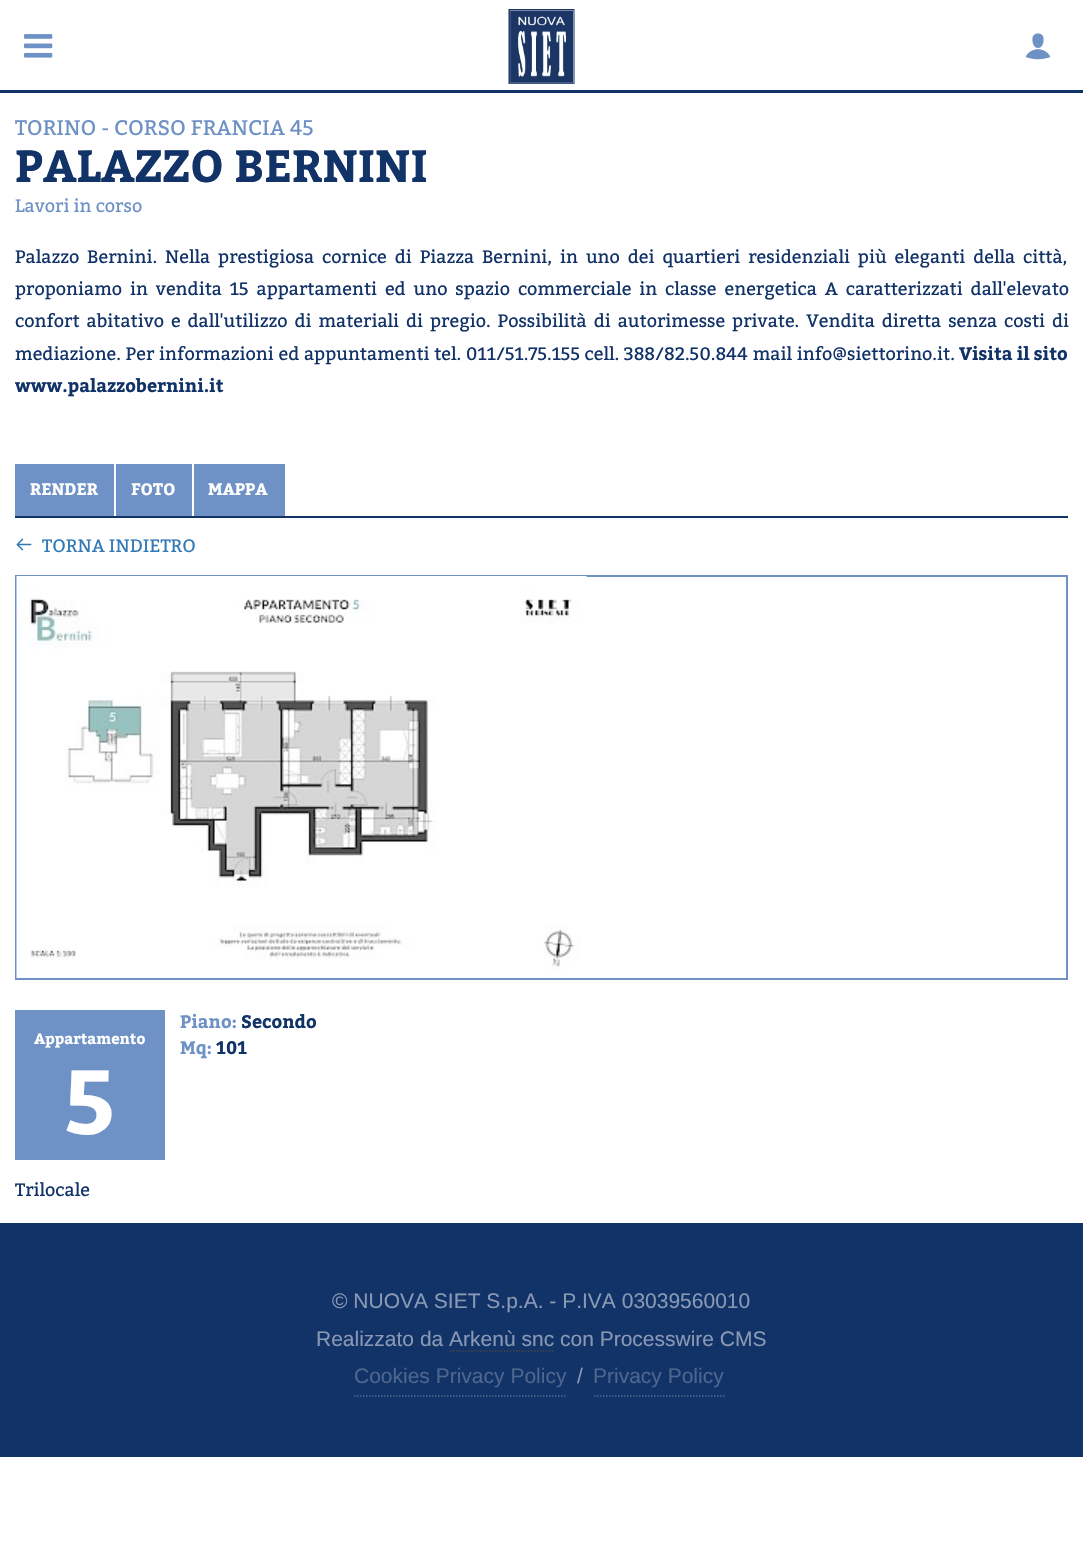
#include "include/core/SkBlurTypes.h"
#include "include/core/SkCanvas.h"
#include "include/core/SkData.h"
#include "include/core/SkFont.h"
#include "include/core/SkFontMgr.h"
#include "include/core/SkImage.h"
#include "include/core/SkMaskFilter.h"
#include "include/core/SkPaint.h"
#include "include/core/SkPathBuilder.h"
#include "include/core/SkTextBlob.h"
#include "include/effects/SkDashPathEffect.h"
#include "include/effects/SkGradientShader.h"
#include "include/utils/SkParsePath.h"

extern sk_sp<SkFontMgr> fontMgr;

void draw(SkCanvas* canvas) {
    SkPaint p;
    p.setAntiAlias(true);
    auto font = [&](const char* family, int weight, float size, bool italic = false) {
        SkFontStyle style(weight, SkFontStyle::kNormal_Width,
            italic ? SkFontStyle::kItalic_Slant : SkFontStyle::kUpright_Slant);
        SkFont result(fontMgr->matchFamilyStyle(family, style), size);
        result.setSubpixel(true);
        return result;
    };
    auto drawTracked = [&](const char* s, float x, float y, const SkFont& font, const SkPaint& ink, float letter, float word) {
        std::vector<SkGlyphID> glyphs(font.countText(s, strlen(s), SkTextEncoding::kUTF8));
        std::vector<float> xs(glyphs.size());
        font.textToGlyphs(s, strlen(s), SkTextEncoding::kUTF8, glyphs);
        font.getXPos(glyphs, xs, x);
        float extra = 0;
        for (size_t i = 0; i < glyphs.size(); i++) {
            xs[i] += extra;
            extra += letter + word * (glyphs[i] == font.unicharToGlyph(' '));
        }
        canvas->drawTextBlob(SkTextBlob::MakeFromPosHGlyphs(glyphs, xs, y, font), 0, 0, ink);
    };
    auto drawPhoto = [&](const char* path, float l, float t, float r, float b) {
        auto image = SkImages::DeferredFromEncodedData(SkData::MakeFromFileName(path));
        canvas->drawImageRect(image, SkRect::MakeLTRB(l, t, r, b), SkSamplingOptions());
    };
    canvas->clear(0xFFFFFFFF);
    drawPhoto("media/1.png", 24, 34, 53, 58);
    drawPhoto("media/2.png", 508, 9, 575, 84);
    drawPhoto("media/3.png", 1025, 33, 1051, 60);
    p.setColor(0xFF123368);
    canvas->drawRect(SkRect::MakeLTRB(0, 90, 1083, 93), p);
    auto font1 = font("Kadwa", 400, 21);
    p.setColor(0xFF6F92C6);
    canvas->drawString("TORINO - CORSO FRANCIA 45", 15, 135, font1, p);
    auto font2 = font("Kadwa", 700, 45);
    p.setColor(0xFF123368);
    canvas->drawString("PALAZZO BERNINI", 15, 182, font2, p);
    auto font3 = font("Kadwa", 400, 18);
    p.setColor(0xFF6F92C6);
    canvas->drawString("Lavori in corso", 15, 212, font3, p);
    p.setColor(0xFF123368);
    drawTracked("Palazzo Bernini. Nella prestigiosa cornice di Piazza Bernini, in uno dei quartieri residenziali più eleganti della città,", 15, 263, font3, p, 0, 3.75f);
    drawTracked("proponiamo in vendita 15 appartamenti ed uno spazio commerciale in classe energetica A caratterizzati dall'elevato", 15, 295, font3, p, 0, 3.75f);
    drawTracked("confort abitativo e dall'utilizzo di materiali di pregio. Possibilità di autorimesse private. Vendita diretta senza costi di", 15, 327, font3, p, 0, 2.75f);
    drawTracked("mediazione. Per informazioni ed appuntamenti tel. 011/51.75.155 cell. 388/82.50.844 mail info@siettorino.it.", 15, 360, font3, p, 0, 0.5f);
    auto font4 = font("Kadwa", 700, 18);
    canvas->drawString("Visita il sito", 959, 360, font4, p);
    canvas->drawString("www.palazzobernini.it", 15, 392, font4, p);
    canvas->drawRect(SkRect::MakeLTRB(15, 516, 1068, 518), p);
    p.setColor(0xFF6F92C6);
    canvas->drawRect(SkRect::MakeLTRB(15, 464, 114, 516), p);
    auto font5 = font("Kadwa", 700, 16.5f);
    p.setColor(0xFFFFFFFF);
    canvas->drawString("RENDER", 30, 495, font5, p);
    p.setColor(0xFF6F92C6);
    canvas->drawRect(SkRect::MakeLTRB(116, 464, 192, 516), p);
    p.setColor(0xFFFFFFFF);
    canvas->drawString("FOTO", 131, 495, font5, p);
    p.setColor(0xFF6F92C6);
    canvas->drawRect(SkRect::MakeLTRB(194, 464, 285, 516), p);
    p.setColor(0xFFFFFFFF);
    canvas->drawString("MAPPA", 208, 495, font5, p);
    drawPhoto("media/4.png", 16, 538, 32, 551);
    p.setColor(0xFF337AB7);
    canvas->drawString("TORNA INDIETRO", 42, 552, font3, p);
    p.setStyle(SkPaint::kStroke_Style);
    p.setStrokeWidth(2);
    p.setColor(0xFF6F92C6);
    canvas->drawRect(SkRect::MakeLTRB(16, 576, 1067, 979), p);
    drawPhoto("media/5.png", 16, 576, 587, 978);
    p.setStyle(SkPaint::kFill_Style);
    canvas->drawRect(SkRect::MakeLTRB(15, 1010, 165, 1160), p);
    auto font6 = font("Kadwa", 700, 15);
    p.setColor(0xFFFFFFFF);
    canvas->drawString("Appartamento", 34, 1044, font6, p);
    auto font7 = font("Kadwa", 700, 90);
    canvas->drawString("5", 65, 1134, font7, p);
    p.setColor(0xFF6F92C6);
    canvas->drawString("Piano:", 180, 1028, font4, p);
    p.setColor(0xFF123368);
    canvas->drawString("Secondo", 241, 1028, font4, p);
    p.setColor(0xFF6F92C6);
    canvas->drawString("Mq:", 180, 1054, font4, p);
    p.setColor(0xFF123368);
    canvas->drawString("101", 216, 1054, font4, p);
    canvas->drawString("Trilocale", 15, 1196, font3, p);
    canvas->drawRect(SkRect::MakeLTRB(0, 1223, 1083, 1457), p);
    auto font8 = font("Liberation Sans", 400, 21);
    p.setColor(0xFF8999B4);
    canvas->drawString("© NUOVA SIET S.p.A. - P.IVA 03039560010", 332, 1308, font8, p);
    canvas->drawString("Realizzato da Arkenù snc con Processwire CMS", 316, 1346, font8, p);
    p.setStyle(SkPaint::kStroke_Style);
    p.setStrokeWidth(1.5f);
    p.setColor(0xFF444444);
    p.setPathEffect(SkDashPathEffect::Make({{1.5f, 1.5f}}, 0));
    canvas->drawPath(SkPathBuilder().moveTo(450, 1351).lineTo(555, 1351).detach(), p);
    p.setPathEffect(nullptr);
    p.setColor(0xFF4D668E);
    p.setPathEffect(SkDashPathEffect::Make({{1.5f, 1.5f}}, 0));
    canvas->drawPath(SkPathBuilder().moveTo(354, 1396).lineTo(567, 1396).detach(), p);
    p.setPathEffect(nullptr);
    p.setStyle(SkPaint::kFill_Style);
    canvas->drawString("Cookies Privacy Policy", 354, 1383, font8, p);
    p.setColor(0xFF8999B4);
    canvas->drawString("/", 577, 1383, font8, p);
    p.setStyle(SkPaint::kStroke_Style);
    p.setColor(0xFF4D668E);
    p.setPathEffect(SkDashPathEffect::Make({{1.5f, 1.5f}}, 0));
    canvas->drawPath(SkPathBuilder().moveTo(594, 1396).lineTo(724.5f, 1396).detach(), p);
    p.setPathEffect(nullptr);
    p.setStyle(SkPaint::kFill_Style);
    canvas->drawString("Privacy Policy", 593, 1383, font8, p);
}
